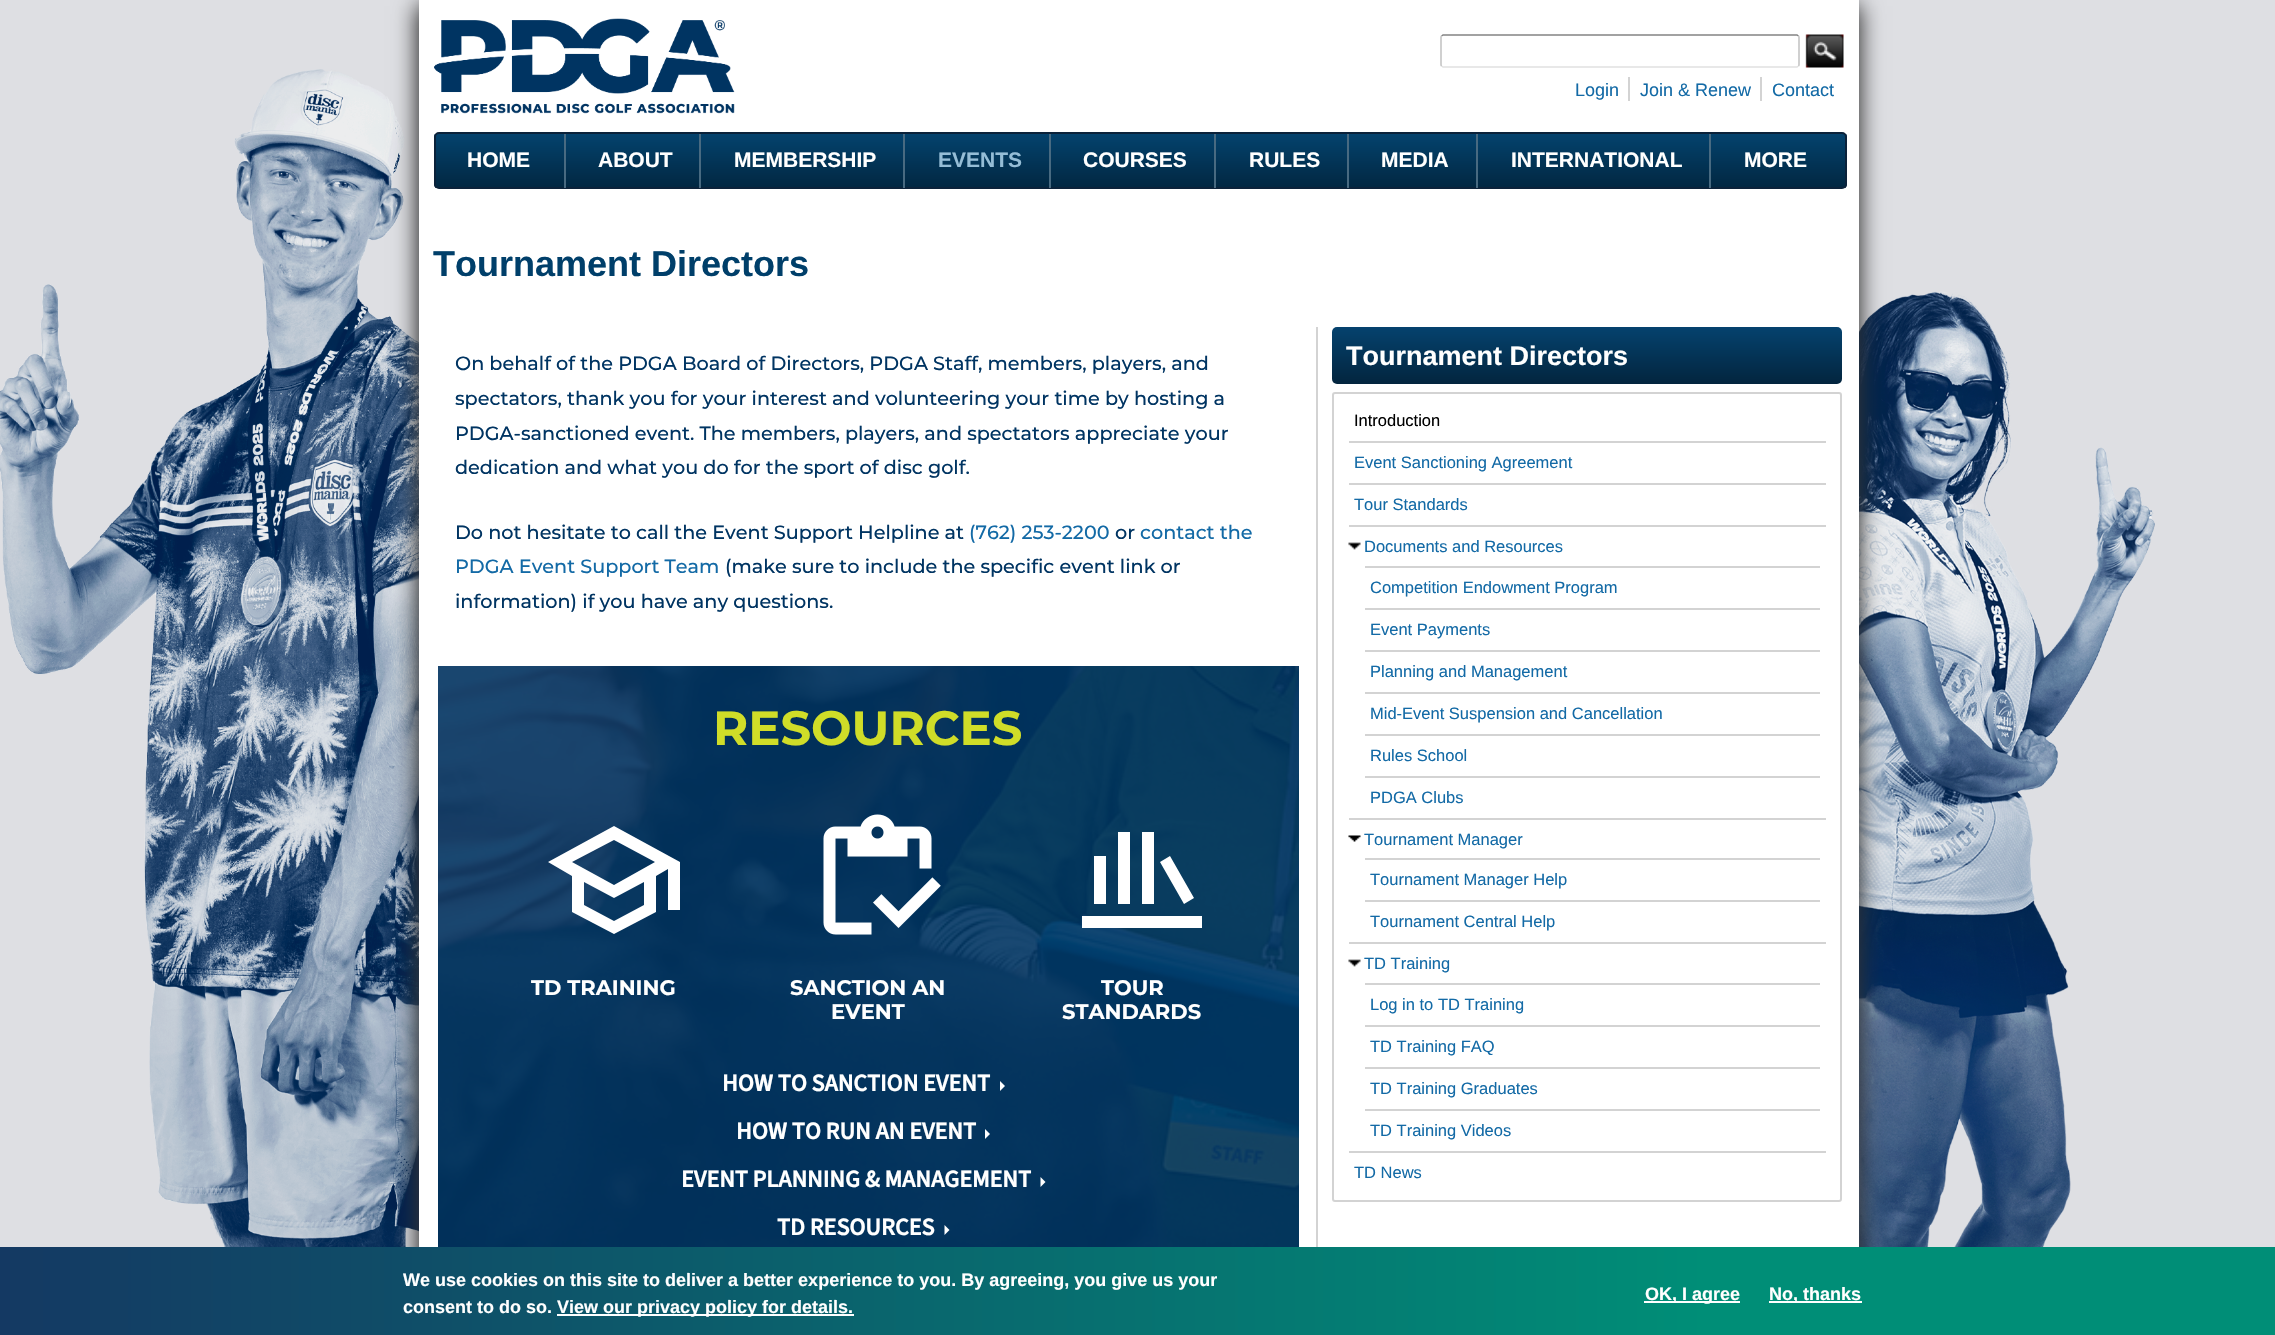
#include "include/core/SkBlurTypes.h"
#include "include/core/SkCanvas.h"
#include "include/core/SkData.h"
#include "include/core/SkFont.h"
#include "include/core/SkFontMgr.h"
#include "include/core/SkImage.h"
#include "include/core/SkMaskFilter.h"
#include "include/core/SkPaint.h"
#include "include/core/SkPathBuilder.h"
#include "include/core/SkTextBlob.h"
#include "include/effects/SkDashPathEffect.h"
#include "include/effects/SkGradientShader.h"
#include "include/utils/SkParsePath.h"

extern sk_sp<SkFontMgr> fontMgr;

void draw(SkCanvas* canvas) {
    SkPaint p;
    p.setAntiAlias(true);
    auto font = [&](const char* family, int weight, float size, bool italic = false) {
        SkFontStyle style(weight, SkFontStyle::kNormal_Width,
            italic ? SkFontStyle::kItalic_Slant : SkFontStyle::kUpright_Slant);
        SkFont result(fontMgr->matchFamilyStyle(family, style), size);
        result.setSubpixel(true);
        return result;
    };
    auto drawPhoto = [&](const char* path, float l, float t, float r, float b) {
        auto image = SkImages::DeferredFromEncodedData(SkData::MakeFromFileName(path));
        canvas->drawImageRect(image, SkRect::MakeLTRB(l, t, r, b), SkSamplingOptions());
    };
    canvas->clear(0xFFDEDFE3);
    drawPhoto("media/1.png", 0, 69, 2155, 1247);
    p.setColor(0xFF333333);
    p.setMaskFilter(SkMaskFilter::MakeBlur(kNormal_SkBlurStyle, 11));
    canvas->drawRect(SkRect::MakeLTRB(417, 6, 1845, 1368), p);
    p.setMaskFilter(nullptr);
    p.setMaskFilter(SkMaskFilter::MakeBlur(kNormal_SkBlurStyle, 11));
    canvas->drawRect(SkRect::MakeLTRB(432, 6, 1860, 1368), p);
    p.setMaskFilter(nullptr);
    p.setColor(0xFFFFFFFF);
    canvas->drawRect(SkRect::MakeLTRB(419, 0, 1859, 204), p);
    drawPhoto("media/2.png", 434, 18, 735, 114);
    p.setStyle(SkPaint::kStroke_Style);
    p.setStrokeWidth(1.5f);
    p.setColor(0xFF848484);
    canvas->drawPath(SkPathBuilder().moveTo(1441.5f, 36).lineTo(1443, 35).lineTo(1797, 35).lineTo(1798.5f, 36).detach(), p);
    p.setColor(0xFFC1C1C1);
    canvas->drawPath(SkPathBuilder().moveTo(1798.5f, 36).cubicTo(1799, 36.5f, 1799, 37, 1799, 37.5f).lineTo(1799, 64.5f).cubicTo(1799, 65, 1799, 65.5f, 1798.5f, 66).detach(), p);
    p.setColor(0xFFE1E1E1);
    canvas->drawPath(SkPathBuilder().moveTo(1798.5f, 66).lineTo(1797, 67).lineTo(1443, 67).lineTo(1441.5f, 66).detach(), p);
    p.setColor(0xFFC1C1C1);
    canvas->drawPath(SkPathBuilder().moveTo(1441.5f, 66).cubicTo(1441, 65.5f, 1441, 65, 1441, 64.5f).lineTo(1441, 37.5f).cubicTo(1441, 37, 1441, 36.5f, 1441.5f, 36).detach(), p);
    drawPhoto("media/3.png", 1805, 34, 1844, 68);
    auto font1 = font("Liberation Sans", 400, 18);
    p.setStyle(SkPaint::kFill_Style);
    p.setColor(0xFF136AA6);
    canvas->drawString("Login", 1575, 96, font1, p);
    p.setColor(0xFFD3D3D3);
    canvas->drawRect(SkRect::MakeLTRB(1628, 77, 1630, 101), p);
    p.setColor(0xFF136AA6);
    canvas->drawString("Join & Renew", 1640, 96, font1, p);
    p.setColor(0xFFD3D3D3);
    canvas->drawRect(SkRect::MakeLTRB(1760, 77, 1762, 101), p);
    p.setColor(0xFF136AA6);
    canvas->drawString("Contact", 1772, 96, font1, p);
    canvas->save();
    canvas->clipPath(SkPathBuilder().moveTo(439, 132).lineTo(1842, 132).cubicTo(1845, 132, 1847, 134, 1847, 137).lineTo(1847, 184).cubicTo(1847, 187, 1845, 189, 1842, 189).lineTo(439, 189).cubicTo(436, 189, 434, 187, 434, 184).lineTo(434, 137).cubicTo(434, 134, 436, 132, 439, 132).close().detach(), true);
    {
        const SkColor colors[] = {0xFF04436E, 0xFF012741};
        const float stops[] = {0, 1};
        const SkPoint ends[] = {{1140, 133}, {1140, 188}};
        p.setShader(SkGradientShader::MakeLinear(ends, colors, stops, 2, SkTileMode::kClamp));
        p.setAlpha(255);
    }
    canvas->drawRect(SkRect::MakeLTRB(434, 134, 1847, 188), p);
    canvas->restore();
    p.setStyle(SkPaint::kStroke_Style);
    p.setStrokeWidth(2);
    p.setShader(nullptr);
    p.setColor(0xFF0B223A);
    canvas->drawRoundRect(SkRect::MakeLTRB(435, 133, 1846, 188), 4, 4, p);
    p.setStyle(SkPaint::kFill_Style);
    p.setColor(0xFF486A81);
    canvas->drawRect(SkRect::MakeLTRB(564, 134, 566, 188), p);
    auto font2 = font("Liberation Sans", 700, 21);
    p.setColor(0xFFFFFFFF);
    canvas->drawString("HOME", 467, 167, font2, p);
    p.setColor(0xFF486A81);
    canvas->drawRect(SkRect::MakeLTRB(699, 134, 701, 188), p);
    p.setColor(0xFFFFFFFF);
    canvas->drawString("ABOUT", 598, 167, font2, p);
    p.setColor(0xFF486A81);
    canvas->drawRect(SkRect::MakeLTRB(903, 134, 905, 188), p);
    p.setColor(0xFFFFFFFF);
    canvas->drawString("MEMBERSHIP", 734, 167, font2, p);
    p.setColor(0xFF486A81);
    canvas->drawRect(SkRect::MakeLTRB(1049, 134, 1051, 188), p);
    p.setColor(0xFF95BDD6);
    canvas->drawString("EVENTS", 938, 167, font2, p);
    p.setColor(0xFF486A81);
    canvas->drawRect(SkRect::MakeLTRB(1214, 134, 1216, 188), p);
    p.setColor(0xFFFFFFFF);
    canvas->drawString("COURSES", 1083, 167, font2, p);
    p.setColor(0xFF486A81);
    canvas->drawRect(SkRect::MakeLTRB(1347, 134, 1349, 188), p);
    p.setColor(0xFFFFFFFF);
    canvas->drawString("RULES", 1249, 167, font2, p);
    p.setColor(0xFF486A81);
    canvas->drawRect(SkRect::MakeLTRB(1476, 134, 1478, 188), p);
    p.setColor(0xFFFFFFFF);
    canvas->drawString("MEDIA", 1381, 167, font2, p);
    p.setColor(0xFF486A81);
    canvas->drawRect(SkRect::MakeLTRB(1709, 134, 1711, 188), p);
    p.setColor(0xFFFFFFFF);
    canvas->drawString("INTERNATIONAL", 1511, 167, font2, p);
    canvas->drawString("MORE", 1744, 167, font2, p);
    canvas->drawRect(SkRect::MakeLTRB(419, 204, 1859, 1247), p);
    auto font3 = font("Liberation Sans", 700, 36);
    p.setColor(0xFF003F6A);
    canvas->drawString("Tournament Directors", 433, 276, font3, p);
    p.setColor(0xFFD3D3D3);
    canvas->drawRect(SkRect::MakeLTRB(1316, 327, 1318, 1247), p);
    auto font4 = font("Montserrat", 500, 19.2f);
    p.setColor(0xFF003462);
    {
        const struct { const char* s; float x, y; } items[] = {
            {"On behalf of the PDGA Board of Directors, PDGA Staff, members, players, and", 455, 370},
            {"spectators, thank you for your interest and volunteering your time by hosting a", 455, 405},
            {"PDGA-sanctioned event. The members, players, and spectators appreciate your", 455, 440},
            {"dedication and what you do for the sport of disc golf.", 455, 474},
            {"Do not hesitate to call the Event Support Helpline at", 455, 539},
        };
        for (auto [s, x, y] : items) {
            canvas->drawString(s, x, y, font4, p);
        }
    }
    p.setColor(0xFF136AA6);
    canvas->drawString("(762) 253-2200", 969, 539, font4, p);
    p.setColor(0xFF003462);
    canvas->drawString("or", 1115, 539, font4, p);
    p.setColor(0xFF136AA6);
    canvas->drawString("contact the", 1140, 539, font4, p);
    canvas->drawString("PDGA Event Support Team", 455, 573, font4, p);
    p.setColor(0xFF003462);
    canvas->drawString("(make sure to include the specific event link or", 725, 573, font4, p);
    canvas->drawString("information) if you have any questions.", 455, 608, font4, p);
    drawPhoto("media/4.png", 438, 666, 1299, 1247);
    auto font5 = font("Montserrat", 700, 48);
    p.setColor(0xFFD0DD28);
    canvas->drawString("RESOURCES", 713, 745, font5, p);
    p.setColor(0xFFFFFFFF);
    canvas->drawPath(SkPathBuilder().moveTo(614, 934).lineTo(572, 912).lineTo(572, 876).lineTo(548, 862).lineTo(614, 826).lineTo(680, 862).lineTo(680, 910).lineTo(668, 910).lineTo(668, 869).lineTo(656, 876).lineTo(656, 912).close().moveTo(614, 885).lineTo(655, 862).lineTo(614, 840).lineTo(572, 862).close().moveTo(614, 921).lineTo(644, 905).lineTo(644, 882).lineTo(614, 898).lineTo(584, 882).lineTo(584, 905).close().moveTo(614, 885).lineTo(614, 885).close().moveTo(614, 898).lineTo(614, 898).close().moveTo(614, 898).lineTo(614, 898).close().detach(), p);
    auto font6 = font("Montserrat", 700, 21);
    canvas->drawString("TD TRAINING", 531, 995, font6, p);
    drawPhoto("media/5.png", 823, 814, 941, 935);
    canvas->drawString("SANCTION AN", 790, 995, font6, p);
    canvas->drawString("EVENT", 831, 1019, font6, p);
    canvas->drawPath(SkPathBuilder().moveTo(1082, 928).lineTo(1082, 916).lineTo(1202, 916).lineTo(1202, 928).close().moveTo(1094, 904).lineTo(1094, 856).lineTo(1106, 856).lineTo(1106, 904).close().moveTo(1118, 904).lineTo(1118, 832).lineTo(1130, 832).lineTo(1130, 904).close().moveTo(1142, 904).lineTo(1142, 832).lineTo(1154, 832).lineTo(1154, 904).close().moveTo(1184, 904).lineTo(1160, 862).lineTo(1170, 856).lineTo(1194, 898).close().detach(), p);
    canvas->drawString("TOUR", 1101, 995, font6, p);
    canvas->drawString("STANDARDS", 1062, 1019, font6, p);
    auto font7 = font("Source Sans 3", 700, 24);
    canvas->drawString("HOW TO SANCTION EVENT", 722, 1091, font7, p);
    canvas->drawPath(SkPathBuilder().moveTo(1000, 1091).lineTo(1000, 1081).lineTo(1005, 1086).close().detach(), p);
    canvas->drawString("HOW TO RUN AN EVENT", 736, 1139, font7, p);
    canvas->drawPath(SkPathBuilder().moveTo(985, 1139).lineTo(985, 1129).lineTo(990, 1134).close().detach(), p);
    canvas->drawString("EVENT PLANNING & MANAGEMENT", 681, 1187, font7, p);
    canvas->drawPath(SkPathBuilder().moveTo(1040.5f, 1187).lineTo(1040.5f, 1177).lineTo(1045.5f, 1182).close().detach(), p);
    canvas->drawString("TD RESOURCES", 777, 1235, font7, p);
    canvas->drawPath(SkPathBuilder().moveTo(944.5f, 1235).lineTo(944.5f, 1225).lineTo(949.5f, 1230).close().detach(), p);
    {
        const SkColor colors[] = {0xFF05426E, 0xFF03253E};
        const float stops[] = {0, 1};
        const SkPoint ends[] = {{1587, 327}, {1587, 384}};
        p.setShader(SkGradientShader::MakeLinear(ends, colors, stops, 2, SkTileMode::kClamp));
        p.setAlpha(255);
    }
    canvas->drawRoundRect(SkRect::MakeLTRB(1332, 327, 1842, 384), 5, 5, p);
    auto font8 = font("Liberation Sans", 700, 27);
    p.setShader(nullptr);
    p.setColor(0xFFFFFFFF);
    canvas->drawString("Tournament Directors", 1346, 365, font8, p);
    p.setStyle(SkPaint::kStroke_Style);
    p.setColor(0xFFD3D3D3);
    canvas->drawRoundRect(SkRect::MakeLTRB(1333, 393, 1841, 1201), 2, 2, p);
    p.setStyle(SkPaint::kFill_Style);
    canvas->drawRect(SkRect::MakeLTRB(1349, 441, 1826, 443), p);
    auto font9 = font("Liberation Sans", 400, 16.5f);
    p.setColor(0xFF000000);
    canvas->drawString("Introduction", 1354, 426, font9, p);
    p.setColor(0xFFD3D3D3);
    canvas->drawRect(SkRect::MakeLTRB(1349, 483, 1826, 485), p);
    p.setColor(0xFF136AA6);
    canvas->drawString("Event Sanctioning Agreement", 1354, 468, font9, p);
    p.setColor(0xFFD3D3D3);
    canvas->drawRect(SkRect::MakeLTRB(1349, 525, 1826, 527), p);
    p.setColor(0xFF136AA6);
    canvas->drawString("Tour Standards", 1354, 510, font9, p);
    drawPhoto("media/6.png", 1348, 542, 1361, 550);
    p.setColor(0xFFD3D3D3);
    canvas->drawRect(SkRect::MakeLTRB(1349, 818, 1826, 820), p);
    p.setColor(0xFF136AA6);
    canvas->drawString("Documents and Resources", 1364, 552, font9, p);
    p.setColor(0xFFD3D3D3);
    canvas->drawRect(SkRect::MakeLTRB(1365, 566, 1820, 568), p);
    canvas->drawRect(SkRect::MakeLTRB(1365, 608, 1820, 610), p);
    p.setColor(0xFF136AA6);
    canvas->drawString("Competition Endowment Program", 1370, 593, font9, p);
    p.setColor(0xFFD3D3D3);
    canvas->drawRect(SkRect::MakeLTRB(1365, 650, 1820, 652), p);
    p.setColor(0xFF136AA6);
    canvas->drawString("Event Payments", 1370, 635, font9, p);
    p.setColor(0xFFD3D3D3);
    canvas->drawRect(SkRect::MakeLTRB(1365, 692, 1820, 694), p);
    p.setColor(0xFF136AA6);
    canvas->drawString("Planning and Management", 1370, 677, font9, p);
    p.setColor(0xFFD3D3D3);
    canvas->drawRect(SkRect::MakeLTRB(1365, 734, 1820, 736), p);
    p.setColor(0xFF136AA6);
    canvas->drawString("Mid-Event Suspension and Cancellation", 1370, 719, font9, p);
    p.setColor(0xFFD3D3D3);
    canvas->drawRect(SkRect::MakeLTRB(1365, 776, 1820, 778), p);
    p.setColor(0xFF136AA6);
    canvas->drawString("Rules School", 1370, 761, font9, p);
    canvas->drawString("PDGA Clubs", 1370, 803, font9, p);
    drawPhoto("media/7.png", 1348, 835, 1361, 842);
    p.setColor(0xFFD3D3D3);
    canvas->drawRect(SkRect::MakeLTRB(1349, 942, 1826, 944), p);
    p.setColor(0xFF136AA6);
    canvas->drawString("Tournament Manager", 1364, 845, font9, p);
    p.setColor(0xFFD3D3D3);
    canvas->drawRect(SkRect::MakeLTRB(1365, 858, 1820, 860), p);
    canvas->drawRect(SkRect::MakeLTRB(1365, 900, 1820, 902), p);
    p.setColor(0xFF136AA6);
    canvas->drawString("Tournament Manager Help", 1370, 885, font9, p);
    canvas->drawString("Tournament Central Help", 1370, 927, font9, p);
    drawPhoto("media/6.png", 1348, 959, 1361, 967);
    p.setColor(0xFFD3D3D3);
    canvas->drawRect(SkRect::MakeLTRB(1349, 1151, 1826, 1153), p);
    p.setColor(0xFF136AA6);
    canvas->drawString("TD Training", 1364, 969, font9, p);
    p.setColor(0xFFD3D3D3);
    canvas->drawRect(SkRect::MakeLTRB(1365, 983, 1820, 985), p);
    canvas->drawRect(SkRect::MakeLTRB(1365, 1025, 1820, 1027), p);
    p.setColor(0xFF136AA6);
    canvas->drawString("Log in to TD Training", 1370, 1010, font9, p);
    p.setColor(0xFFD3D3D3);
    canvas->drawRect(SkRect::MakeLTRB(1365, 1067, 1820, 1069), p);
    p.setColor(0xFF136AA6);
    canvas->drawString("TD Training FAQ", 1370, 1052, font9, p);
    p.setColor(0xFFD3D3D3);
    canvas->drawRect(SkRect::MakeLTRB(1365, 1109, 1820, 1111), p);
    p.setColor(0xFF136AA6);
    {
        const struct { const char* s; float x, y; } items[] = {
            {"TD Training Graduates", 1370, 1094},
            {"TD Training Videos", 1370, 1136},
            {"TD News", 1354, 1178},
        };
        for (auto [s, x, y] : items) {
            canvas->drawString(s, x, y, font9, p);
        }
    }
    {
        const SkColor colors[] = {0xFF143963, 0xFF008E77};
        const float stops[] = {0, 0.75f};
        const SkPoint ends[] = {{0, 1295}, {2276, 1295}};
        p.setShader(SkGradientShader::MakeLinear(ends, colors, stops, 2, SkTileMode::kClamp));
        p.setAlpha(255);
    }
    canvas->drawRect(SkRect::MakeLTRB(0, 1247, 2275, 1335), p);
    auto font10 = font("Liberation Sans", 700, 18);
    p.setShader(nullptr);
    p.setColor(0xFFFFFFFF);
    canvas->drawString("We use cookies on this site to deliver a better experience to you. By agreeing, you give us your", 403, 1286, font10, p);
    canvas->drawString("consent to do so.", 403, 1313, font10, p);
    canvas->drawRect(SkRect::MakeLTRB(557, 1314, 854, 1316), p);
    canvas->drawString("View our privacy policy for details.", 557, 1313, font10, p);
    canvas->drawRect(SkRect::MakeLTRB(1644, 1301, 1740, 1303), p);
    canvas->drawString("OK, I agree", 1645, 1300, font10, p);
    canvas->drawRect(SkRect::MakeLTRB(1769, 1301, 1862, 1303), p);
    canvas->drawString("No, thanks", 1769, 1300, font10, p);
}
